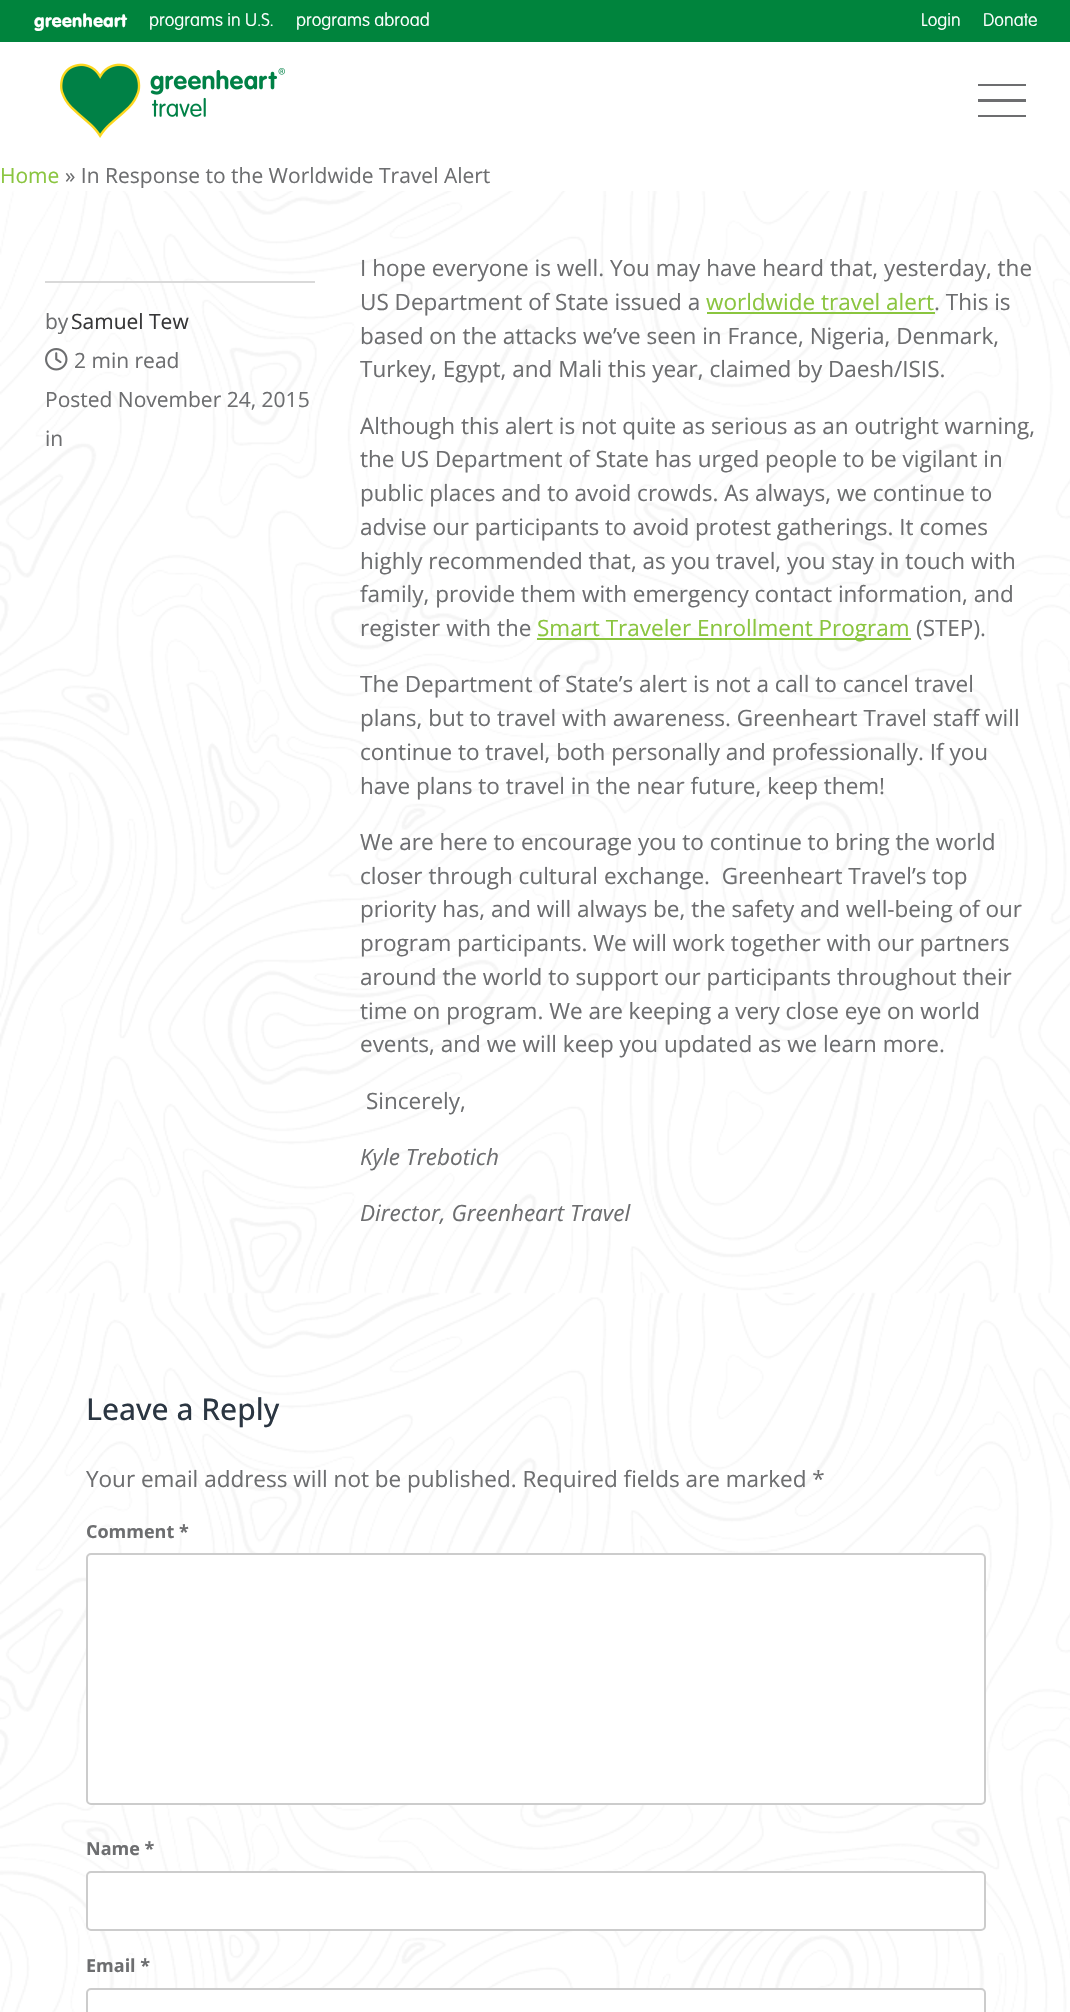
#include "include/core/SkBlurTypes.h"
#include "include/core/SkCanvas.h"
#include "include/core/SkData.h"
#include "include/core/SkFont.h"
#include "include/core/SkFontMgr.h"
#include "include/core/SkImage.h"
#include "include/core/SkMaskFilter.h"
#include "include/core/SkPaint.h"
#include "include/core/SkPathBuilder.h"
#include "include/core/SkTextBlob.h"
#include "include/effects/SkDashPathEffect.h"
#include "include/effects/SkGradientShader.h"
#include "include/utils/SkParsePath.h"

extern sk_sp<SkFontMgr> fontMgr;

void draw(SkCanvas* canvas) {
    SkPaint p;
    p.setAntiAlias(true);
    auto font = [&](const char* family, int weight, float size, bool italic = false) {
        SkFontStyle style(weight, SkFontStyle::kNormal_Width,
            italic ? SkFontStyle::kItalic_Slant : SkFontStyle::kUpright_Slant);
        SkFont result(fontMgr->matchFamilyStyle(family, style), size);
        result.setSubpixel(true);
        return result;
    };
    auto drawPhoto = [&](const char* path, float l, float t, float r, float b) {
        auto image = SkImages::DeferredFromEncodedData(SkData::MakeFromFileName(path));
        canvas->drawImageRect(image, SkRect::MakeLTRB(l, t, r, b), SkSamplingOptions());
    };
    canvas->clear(0xFFFFFFFF);
    p.setColor(0xFF00843D);
    canvas->drawRect(SkRect::MakeLTRB(0, 0, 1070, 42), p);
    auto font1 = font("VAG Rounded", 400, 18);
    p.setColor(0xFFFFFFFF);
    canvas->drawString("greenheart", 34, 27, font1, p);
    auto font2 = font("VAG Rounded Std", 100, 18);
    {
        const struct { const char* s; float x, y; } items[] = {
            {"programs in U.S.", 149, 26},
            {"programs abroad", 296, 26},
            {"Login", 921, 26},
            {"Donate", 983, 26},
        };
        for (auto [s, x, y] : items) {
            canvas->drawString(s, x, y, font2, p);
        }
    }
    drawPhoto("media/1.png", 60, 63, 285, 138);
    p.setColor(0xFF6D6E70);
    canvas->drawPath(SkPathBuilder().moveTo(978, 84).lineTo(1026, 84).lineTo(1026, 86).lineTo(978, 86).close().moveTo(978, 115).lineTo(1026, 115).lineTo(1026, 117).lineTo(978, 117).close().moveTo(978, 99).lineTo(1026, 99).lineTo(1026, 102).lineTo(978, 102).close().detach(), p);
    drawPhoto("media/2.png", 0, 191, 1070, 2012);
    auto font3 = font("Open Sans", 400, 21);
    p.setColor(0xFF8AC53F);
    canvas->drawString("Home", 0, 183, font3, p);
    p.setColor(0xFF6D6E70);
    canvas->drawString("» In Response to the Worldwide Travel Alert", 65, 183, font3, p);
    p.setColor(0xFFD9D9D9);
    canvas->drawRect(SkRect::MakeLTRB(45, 281, 315, 283), p);
    p.setColor(0xFF6D6E70);
    canvas->drawString("by", 45, 329, font3, p);
    p.setColor(0xFF363637);
    canvas->drawString("Samuel Tew", 71, 329, font3, p);
    drawPhoto("media/3.png", 45, 348, 68, 371);
    p.setColor(0xFF6D6E70);
    {
        const struct { const char* s; float x, y; } items[] = {
            {"2 min read", 74, 368},
            {"Posted November 24, 2015", 45, 407},
            {"in", 45, 446},
        };
        for (auto [s, x, y] : items) {
            canvas->drawString(s, x, y, font3, p);
        }
    }
    auto font4 = font("Open Sans", 400, 22.5f);
    canvas->drawString("I hope everyone is well. You may have heard that, yesterday, the", 360, 276, font4, p);
    canvas->drawString("US Department of State issued a", 360, 310, font4, p);
    p.setColor(0xFF8AC53F);
    canvas->drawString("worldwide travel alert", 706, 310, font4, p);
    canvas->drawRect(SkRect::MakeLTRB(707, 312, 935, 314), p);
    p.setColor(0xFF6D6E70);
    {
        const struct { const char* s; float x, y; } items[] = {
            {". This is", 934, 310},
            {"based on the attacks we’ve seen in France, Nigeria, Denmark,", 360, 344},
            {"Turkey, Egypt, and Mali this year, claimed by Daesh/ISIS.", 360, 377},
            {"Although this alert is not quite as serious as an outright warning,", 360, 434},
            {"the US Department of State has urged people to be vigilant in", 360, 467},
            {"public places and to avoid crowds. As always, we continue to", 360, 501},
            {"advise our participants to avoid protest gatherings. It comes", 360, 535},
            {"highly recommended that, as you travel, you stay in touch with", 360, 569},
            {"family, provide them with emergency contact information, and", 360, 602},
            {"register with the", 360, 636},
        };
        for (auto [s, x, y] : items) {
            canvas->drawString(s, x, y, font4, p);
        }
    }
    p.setColor(0xFF8AC53F);
    canvas->drawRect(SkRect::MakeLTRB(537, 638, 911, 640), p);
    canvas->drawString("Smart Traveler Enrollment Program", 537, 636, font4, p);
    p.setColor(0xFF6D6E70);
    {
        const struct { const char* s; float x, y; } items[] = {
            {"(STEP).", 916, 636},
            {"The Department of State’s alert is not a call to cancel travel", 360, 692},
            {"plans, but to travel with awareness. Greenheart Travel staff will", 360, 726},
            {"continue to travel, both personally and professionally. If you", 360, 760},
            {"have plans to travel in the near future, keep them!", 360, 794},
            {"We are here to encourage you to continue to bring the world", 360, 850},
            {"closer through cultural exchange.  Greenheart Travel’s top", 360, 884},
            {"priority has, and will always be, the safety and well-being of our", 360, 917},
            {"program participants. We will work together with our partners", 360, 951},
            {"around the world to support our participants throughout their", 360, 985},
            {"time on program. We are keeping a very close eye on world", 360, 1019},
            {"events, and we will keep you updated as we learn more.", 360, 1052},
            {"Sincerely,", 366, 1109},
        };
        for (auto [s, x, y] : items) {
            canvas->drawString(s, x, y, font4, p);
        }
    }
    auto font5 = font("Open Sans", 400, 22.5f, true);
    canvas->drawString("Kyle Trebotich", 360, 1165, font5, p);
    canvas->drawString("Director, Greenheart Travel", 360, 1221, font5, p);
    auto font6 = font("Open Sans", 500, 30);
    p.setColor(0xFF2B3642);
    canvas->drawString("Leave a Reply", 86, 1420, font6, p);
    p.setColor(0xFF6D6E70);
    canvas->drawString("Your email address will not be published. Required fields are marked *", 86, 1487, font4, p);
    auto font7 = font("Open Sans", 700, 18);
    canvas->drawString("Comment *", 86, 1538, font7, p);
    p.setColor(0xFFFFFFFF);
    canvas->drawRoundRect(SkRect::MakeLTRB(87, 1554, 985, 1804), 4, 4, p);
    p.setStyle(SkPaint::kStroke_Style);
    p.setStrokeWidth(2);
    p.setColor(0xFFCCCCCC);
    canvas->drawRoundRect(SkRect::MakeLTRB(87, 1554, 985, 1804), 4, 4, p);
    p.setStyle(SkPaint::kFill_Style);
    p.setColor(0xFF6D6E70);
    canvas->drawString("Name *", 86, 1855, font7, p);
    p.setColor(0xFFFFFFFF);
    canvas->drawRoundRect(SkRect::MakeLTRB(87, 1872, 985, 1930), 4, 4, p);
    p.setStyle(SkPaint::kStroke_Style);
    p.setColor(0xFFCCCCCC);
    canvas->drawRoundRect(SkRect::MakeLTRB(87, 1872, 985, 1930), 4, 4, p);
    p.setStyle(SkPaint::kFill_Style);
    p.setColor(0xFF6D6E70);
    canvas->drawString("Email *", 86, 1972, font7, p);
    p.setColor(0xFFFFFFFF);
    canvas->drawRoundRect(SkRect::MakeLTRB(87, 1989, 985, 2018), 4, 4, p);
    p.setStyle(SkPaint::kStroke_Style);
    p.setColor(0xFFCCCCCC);
    canvas->drawRoundRect(SkRect::MakeLTRB(87, 1989, 985, 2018), 4, 4, p);
}
